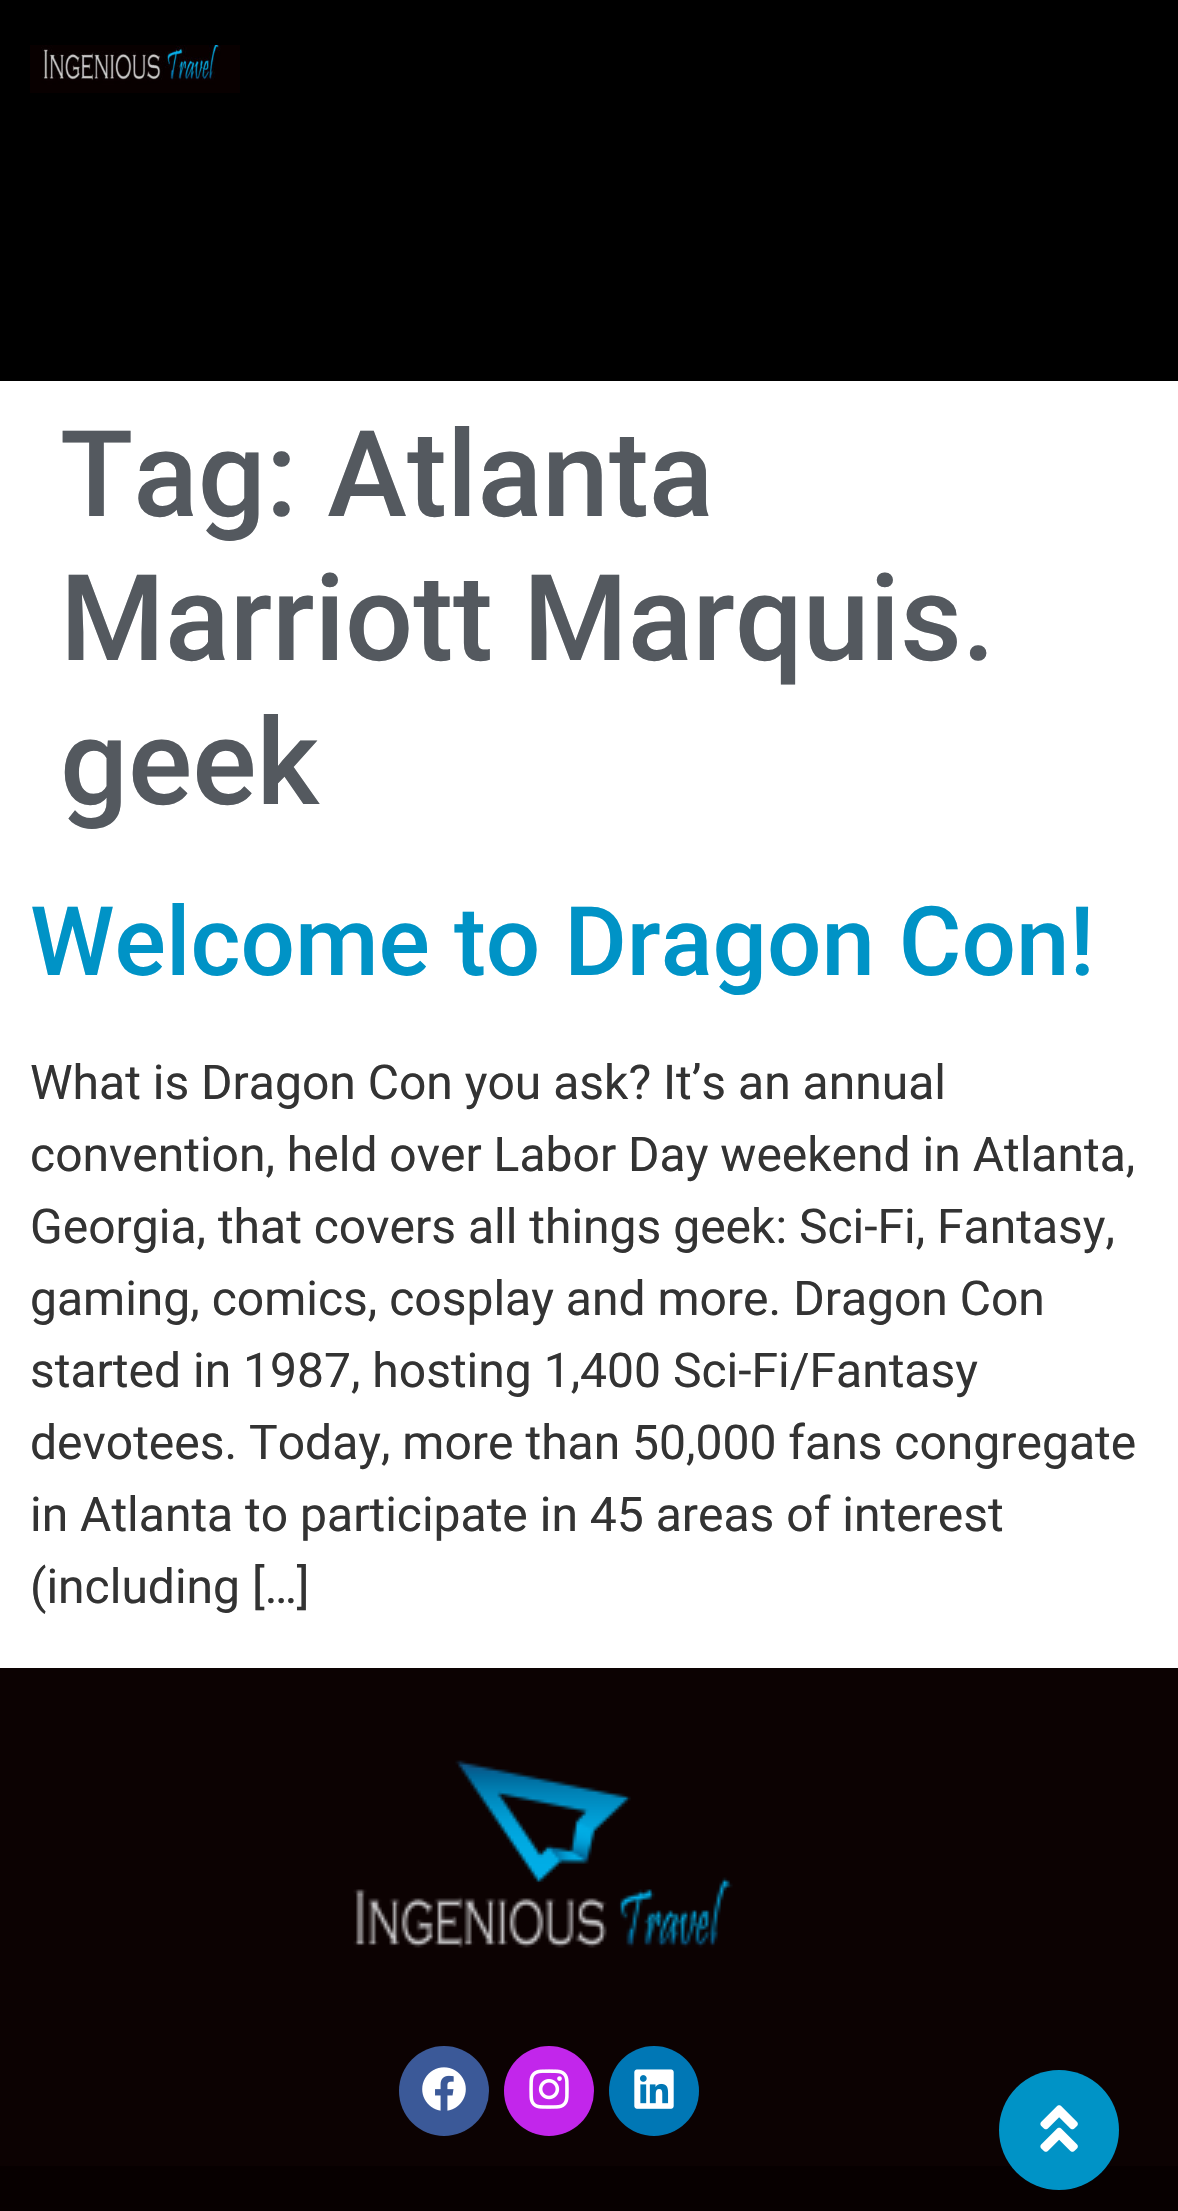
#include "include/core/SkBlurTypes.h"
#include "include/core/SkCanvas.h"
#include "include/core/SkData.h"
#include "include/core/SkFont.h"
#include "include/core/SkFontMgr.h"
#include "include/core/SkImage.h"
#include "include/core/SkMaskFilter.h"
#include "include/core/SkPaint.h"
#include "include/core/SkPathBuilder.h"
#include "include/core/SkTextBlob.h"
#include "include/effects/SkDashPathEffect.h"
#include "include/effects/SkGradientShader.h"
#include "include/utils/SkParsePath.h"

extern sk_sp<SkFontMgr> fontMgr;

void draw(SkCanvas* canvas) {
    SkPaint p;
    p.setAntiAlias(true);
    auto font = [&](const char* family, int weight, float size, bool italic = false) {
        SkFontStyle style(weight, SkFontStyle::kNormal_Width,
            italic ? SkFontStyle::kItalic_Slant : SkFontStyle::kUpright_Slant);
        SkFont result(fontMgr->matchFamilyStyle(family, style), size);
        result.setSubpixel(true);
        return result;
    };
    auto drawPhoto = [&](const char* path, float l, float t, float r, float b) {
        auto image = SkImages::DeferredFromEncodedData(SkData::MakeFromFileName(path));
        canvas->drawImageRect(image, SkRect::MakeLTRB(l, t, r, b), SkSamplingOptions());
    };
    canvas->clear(0xFFFFFFFF);
    p.setColor(0xFF000000);
    canvas->drawRect(SkRect::MakeLTRB(0, 0, 1178, 381), p);
    drawPhoto("media/1.png", 30, 45, 240, 93);
    auto font1 = font("Roboto", 500, 120);
    p.setColor(0xFF54595F);
    {
        const struct { const char* s; float x, y; } items[] = {
            {"Tag: Atlanta", 60, 516},
            {"Marriott Marquis.", 60, 660},
            {"geek", 60, 804},
        };
        for (auto [s, x, y] : items) {
            canvas->drawString(s, x, y, font1, p);
        }
    }
    auto font2 = font("Roboto", 500, 96);
    p.setColor(0xFF0093C6);
    canvas->drawString("Welcome to Dragon Con!", 30, 975, font2, p);
    auto font3 = font("Roboto", 400, 48);
    p.setColor(0xFF333333);
    {
        const struct { const char* s; float x, y; } items[] = {
            {"What is Dragon Con you ask? It’s an annual", 30, 1099},
            {"convention, held over Labor Day weekend in Atlanta,", 30, 1171},
            {"Georgia, that covers all things geek: Sci-Fi, Fantasy,", 30, 1243},
            {"gaming, comics, cosplay and more. Dragon Con", 30, 1315},
            {"started in 1987, hosting 1,400 Sci-Fi/Fantasy", 30, 1387},
            {"devotees. Today, more than 50,000 fans congregate", 30, 1459},
            {"in Atlanta to participate in 45 areas of interest", 30, 1531},
            {"(including […]", 30, 1603},
        };
        for (auto [s, x, y] : items) {
            canvas->drawString(s, x, y, font3, p);
        }
    }
    p.setColor(0xFF0C0202);
    canvas->drawRect(SkRect::MakeLTRB(0, 1668, 1178, 2166), p);
    drawPhoto("media/2.png", 353, 1760, 733, 1948);
    p.setColor(0xFF3B5998);
    canvas->drawCircle(444, 2091, 45, p);
    drawPhoto("media/3.png", 422, 2067, 466, 2111);
    p.setColor(0xFFC226EB);
    canvas->drawCircle(549, 2091, 45, p);
    drawPhoto("media/4.png", 529, 2069, 569, 2109);
    p.setColor(0xFF0077B5);
    canvas->drawCircle(654, 2091, 45, p);
    drawPhoto("media/5.png", 634, 2069, 674, 2109);
    p.setColor(0xFF070000);
    canvas->drawRect(SkRect::MakeLTRB(0, 2166, 1178, 2211), p);
    p.setColor(0xFF0093C6);
    canvas->drawCircle(1059, 2130, 60, p);
    drawPhoto("media/6.png", 1040, 2105, 1078, 2152);
}
